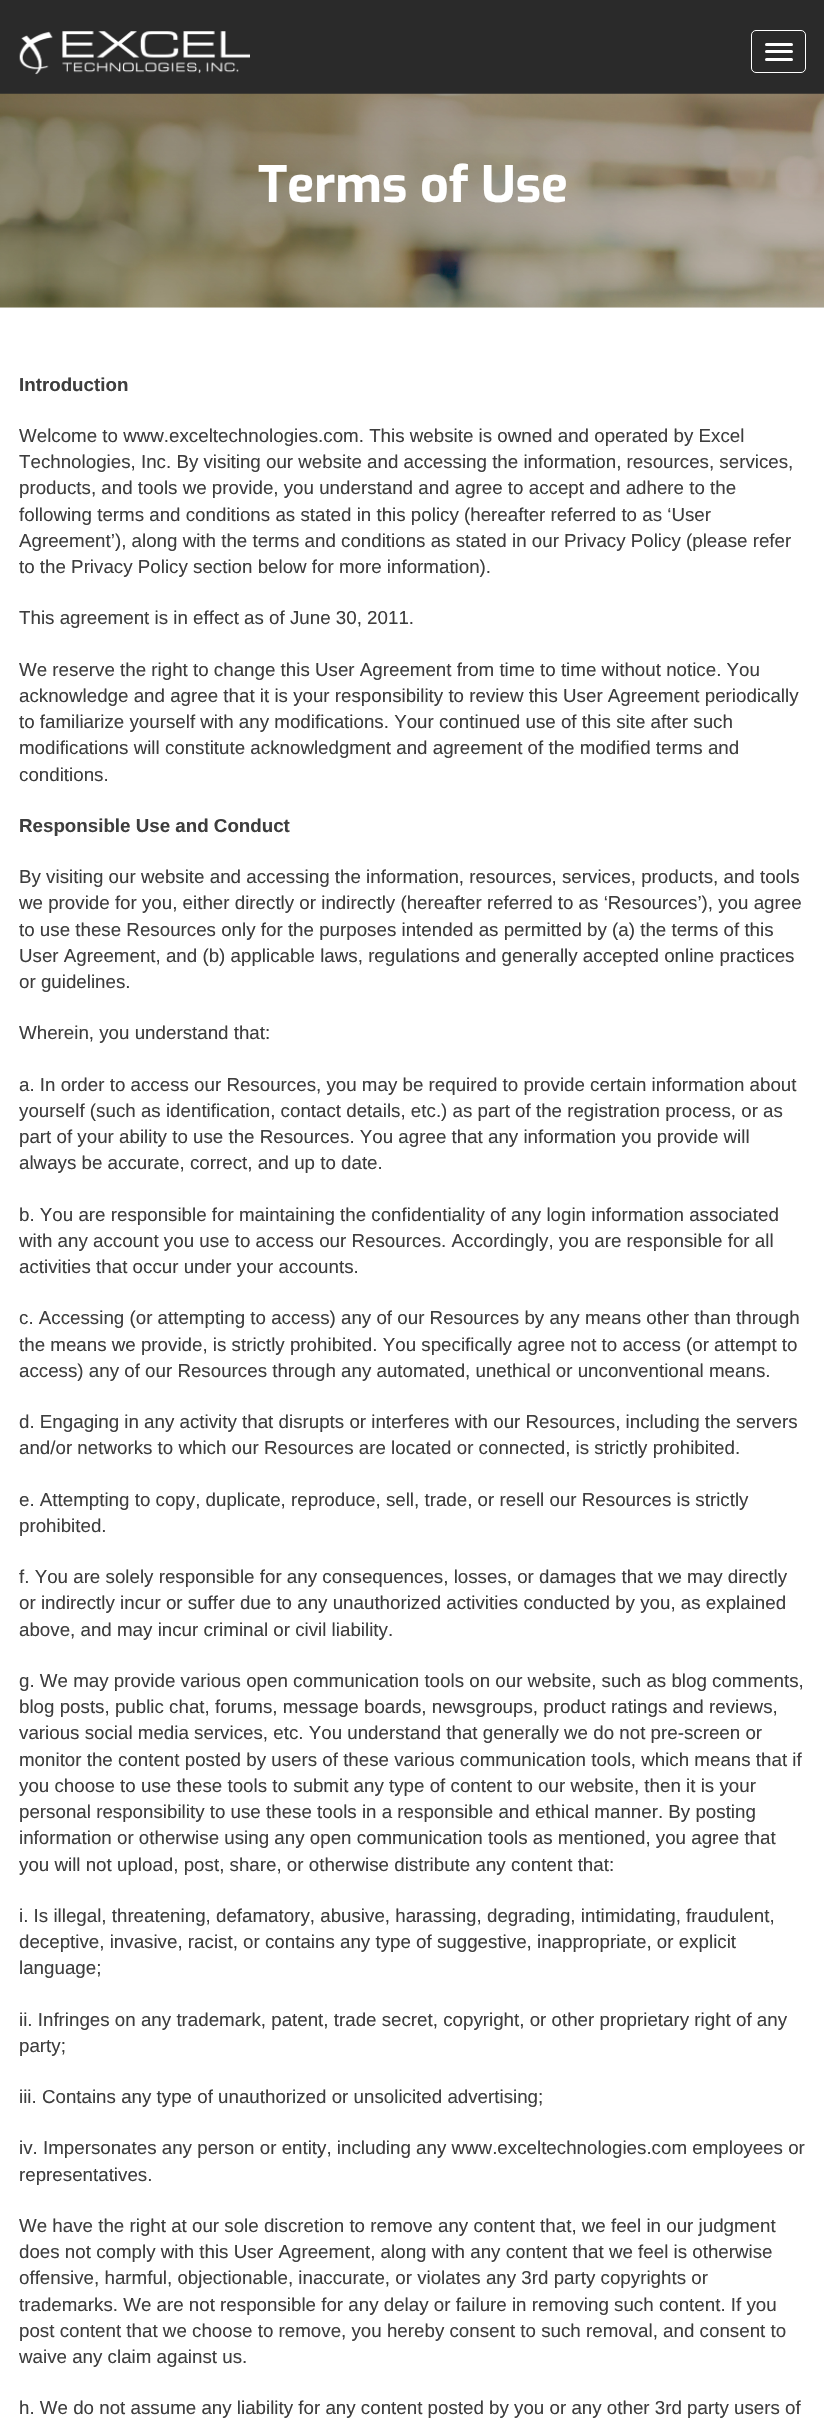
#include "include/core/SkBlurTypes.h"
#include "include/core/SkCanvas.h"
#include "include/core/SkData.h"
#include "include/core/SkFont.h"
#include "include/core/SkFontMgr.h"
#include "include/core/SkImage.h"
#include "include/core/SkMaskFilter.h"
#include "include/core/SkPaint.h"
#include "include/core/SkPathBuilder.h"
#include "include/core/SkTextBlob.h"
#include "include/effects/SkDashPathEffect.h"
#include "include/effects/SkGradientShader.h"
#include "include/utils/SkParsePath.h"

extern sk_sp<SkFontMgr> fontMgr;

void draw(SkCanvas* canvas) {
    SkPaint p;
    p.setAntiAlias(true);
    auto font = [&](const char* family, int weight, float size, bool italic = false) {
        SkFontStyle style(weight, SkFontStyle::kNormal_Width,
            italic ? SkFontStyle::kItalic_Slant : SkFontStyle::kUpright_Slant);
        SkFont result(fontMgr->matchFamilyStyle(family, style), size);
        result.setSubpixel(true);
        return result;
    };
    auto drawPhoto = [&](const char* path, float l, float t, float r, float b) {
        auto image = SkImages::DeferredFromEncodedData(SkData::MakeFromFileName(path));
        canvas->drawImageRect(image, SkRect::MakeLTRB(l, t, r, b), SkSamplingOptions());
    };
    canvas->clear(0xFFF6F6F6);
    p.setColor(0xFF2A2A2A);
    canvas->drawRect(SkRect::MakeLTRB(0, 0, 824, 94), p);
    drawPhoto("media/1.png", 19, 31, 250, 75);
    p.setStyle(SkPaint::kStroke_Style);
    p.setStrokeWidth(1);
    p.setColor(0xFFFFFFFF);
    canvas->drawRoundRect(SkRect::MakeLTRB(751.5f, 30.5f, 805.5f, 72.5f), 4.5f, 4.5f, p);
    p.setStyle(SkPaint::kFill_Style);
    canvas->drawRoundRect(SkRect::MakeLTRB(765, 43, 793, 46), 1.5f, 1.5f, p);
    canvas->drawRoundRect(SkRect::MakeLTRB(765, 50, 793, 53), 1.5f, 1.5f, p);
    canvas->drawRoundRect(SkRect::MakeLTRB(765, 58, 793, 61), 1.5f, 1.5f, p);
    drawPhoto("media/2.png", 0, 93, 824, 308);
    auto font1 = font("Exo", 700, 50);
    canvas->drawString("Terms of Use", 258, 202, font1, p);
    canvas->drawRect(SkRect::MakeLTRB(0, 308, 824, 2433), p);
    auto font2 = font("Liberation Sans", 700, 18.75f);
    p.setColor(0xFF3E3E3E);
    canvas->drawString("Introduction", 19, 391, font2, p);
    auto font3 = font("Liberation Sans", 400, 18.75f);
    {
        const struct { const char* s; float x, y; } items[] = {
            {"Welcome to www.exceltechnologies.com. This website is owned and operated by Excel", 19, 442},
            {"Technologies, Inc. By visiting our website and accessing the information, resources, services,", 19, 468},
            {"products, and tools we provide, you understand and agree to accept and adhere to the", 19, 494},
            {"following terms and conditions as stated in this policy (hereafter referred to as ‘User", 19, 521},
            {"Agreement’), along with the terms and conditions as stated in our Privacy Policy (please refer", 19, 547},
            {"to the Privacy Policy section below for more information).", 19, 573},
            {"This agreement is in effect as of June 30, 2011.", 19, 624},
            {"We reserve the right to change this User Agreement from time to time without notice. You", 19, 676},
            {"acknowledge and agree that it is your responsibility to review this User Agreement periodically", 19, 702},
            {"to familiarize yourself with any modifications. Your continued use of this site after such", 19, 728},
            {"modifications will constitute acknowledgment and agreement of the modified terms and", 19, 754},
            {"conditions.", 19, 781},
        };
        for (auto [s, x, y] : items) {
            canvas->drawString(s, x, y, font3, p);
        }
    }
    canvas->drawString("Responsible Use and Conduct", 19, 832, font2, p);
    {
        const struct { const char* s; float x, y; } items[] = {
            {"By visiting our website and accessing the information, resources, services, products, and tools", 19, 883},
            {"we provide for you, either directly or indirectly (hereafter referred to as ‘Resources’), you agree", 19, 909},
            {"to use these Resources only for the purposes intended as permitted by (a) the terms of this", 19, 936},
            {"User Agreement, and (b) applicable laws, regulations and generally accepted online practices", 19, 962},
            {"or guidelines.", 19, 988},
            {"Wherein, you understand that:", 19, 1039},
            {"a. In order to access our Resources, you may be required to provide certain information about", 19, 1091},
            {"yourself (such as identification, contact details, etc.) as part of the registration process, or as", 19, 1117},
            {"part of your ability to use the Resources. You agree that any information you provide will", 19, 1143},
            {"always be accurate, correct, and up to date.", 19, 1169},
            {"b. You are responsible for maintaining the confidentiality of any login information associated", 19, 1221},
            {"with any account you use to access our Resources. Accordingly, you are responsible for all", 19, 1247},
            {"activities that occur under your accounts.", 19, 1273},
            {"c. Accessing (or attempting to access) any of our Resources by any means other than through", 19, 1324},
            {"the means we provide, is strictly prohibited. You specifically agree not to access (or attempt to", 19, 1351},
            {"access) any of our Resources through any automated, unethical or unconventional means.", 19, 1377},
            {"d. Engaging in any activity that disrupts or interferes with our Resources, including the servers", 19, 1428},
            {"and/or networks to which our Resources are located or connected, is strictly prohibited.", 19, 1454},
            {"e. Attempting to copy, duplicate, reproduce, sell, trade, or resell our Resources is strictly", 19, 1506},
            {"prohibited.", 19, 1532},
            {"f. You are solely responsible for any consequences, losses, or damages that we may directly", 19, 1583},
            {"or indirectly incur or suffer due to any unauthorized activities conducted by you, as explained", 19, 1609},
            {"above, and may incur criminal or civil liability.", 19, 1636},
            {"g. We may provide various open communication tools on our website, such as blog comments,", 19, 1687},
            {"blog posts, public chat, forums, message boards, newsgroups, product ratings and reviews,", 19, 1713},
            {"various social media services, etc. You understand that generally we do not pre-screen or", 19, 1739},
            {"monitor the content posted by users of these various communication tools, which means that if", 19, 1766},
            {"you choose to use these tools to submit any type of content to our website, then it is your", 19, 1792},
            {"personal responsibility to use these tools in a responsible and ethical manner. By posting", 19, 1818},
            {"information or otherwise using any open communication tools as mentioned, you agree that", 19, 1844},
            {"you will not upload, post, share, or otherwise distribute any content that:", 19, 1871},
            {"i. Is illegal, threatening, defamatory, abusive, harassing, degrading, intimidating, fraudulent,", 19, 1922},
            {"deceptive, invasive, racist, or contains any type of suggestive, inappropriate, or explicit", 19, 1948},
            {"language;", 19, 1974},
            {"ii. Infringes on any trademark, patent, trade secret, copyright, or other proprietary right of any", 19, 2026},
            {"party;", 19, 2052},
            {"iii. Contains any type of unauthorized or unsolicited advertising;", 19, 2103},
            {"iv. Impersonates any person or entity, including any www.exceltechnologies.com employees or", 19, 2154},
            {"representatives.", 19, 2181},
            {"We have the right at our sole discretion to remove any content that, we feel in our judgment", 19, 2232},
            {"does not comply with this User Agreement, along with any content that we feel is otherwise", 19, 2258},
            {"offensive, harmful, objectionable, inaccurate, or violates any 3rd party copyrights or", 19, 2284},
            {"trademarks. We are not responsible for any delay or failure in removing such content. If you", 19, 2311},
            {"post content that we choose to remove, you hereby consent to such removal, and consent to", 19, 2337},
            {"waive any claim against us.", 19, 2363},
            {"h. We do not assume any liability for any content posted by you or any other 3rd party users of", 19, 2414},
        };
        for (auto [s, x, y] : items) {
            canvas->drawString(s, x, y, font3, p);
        }
    }
}
